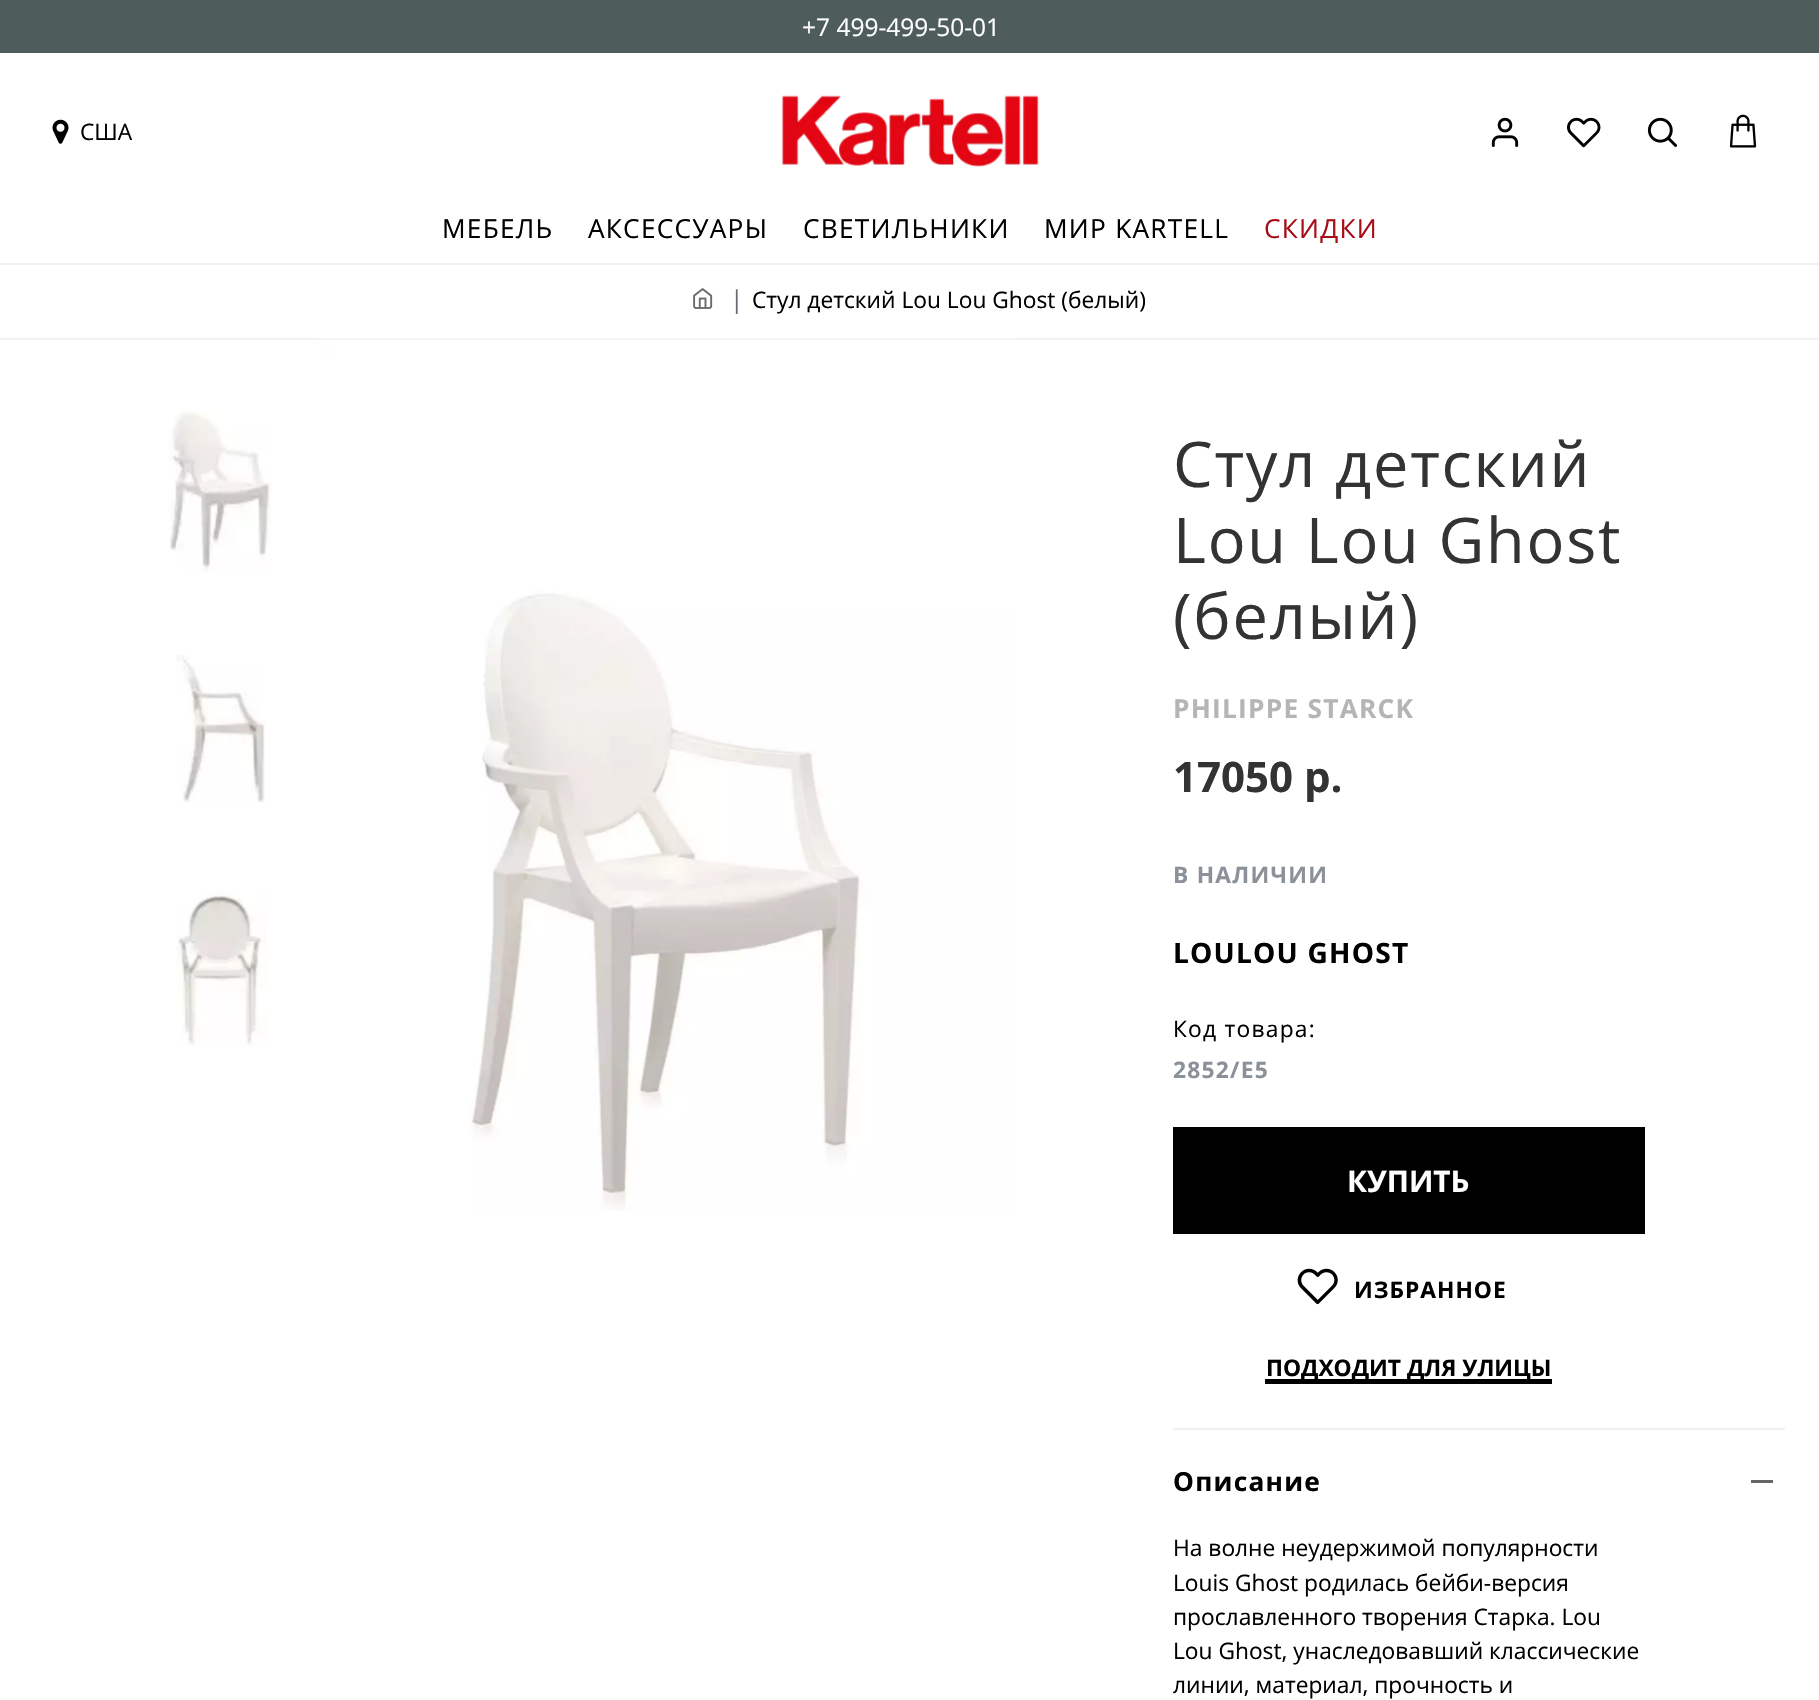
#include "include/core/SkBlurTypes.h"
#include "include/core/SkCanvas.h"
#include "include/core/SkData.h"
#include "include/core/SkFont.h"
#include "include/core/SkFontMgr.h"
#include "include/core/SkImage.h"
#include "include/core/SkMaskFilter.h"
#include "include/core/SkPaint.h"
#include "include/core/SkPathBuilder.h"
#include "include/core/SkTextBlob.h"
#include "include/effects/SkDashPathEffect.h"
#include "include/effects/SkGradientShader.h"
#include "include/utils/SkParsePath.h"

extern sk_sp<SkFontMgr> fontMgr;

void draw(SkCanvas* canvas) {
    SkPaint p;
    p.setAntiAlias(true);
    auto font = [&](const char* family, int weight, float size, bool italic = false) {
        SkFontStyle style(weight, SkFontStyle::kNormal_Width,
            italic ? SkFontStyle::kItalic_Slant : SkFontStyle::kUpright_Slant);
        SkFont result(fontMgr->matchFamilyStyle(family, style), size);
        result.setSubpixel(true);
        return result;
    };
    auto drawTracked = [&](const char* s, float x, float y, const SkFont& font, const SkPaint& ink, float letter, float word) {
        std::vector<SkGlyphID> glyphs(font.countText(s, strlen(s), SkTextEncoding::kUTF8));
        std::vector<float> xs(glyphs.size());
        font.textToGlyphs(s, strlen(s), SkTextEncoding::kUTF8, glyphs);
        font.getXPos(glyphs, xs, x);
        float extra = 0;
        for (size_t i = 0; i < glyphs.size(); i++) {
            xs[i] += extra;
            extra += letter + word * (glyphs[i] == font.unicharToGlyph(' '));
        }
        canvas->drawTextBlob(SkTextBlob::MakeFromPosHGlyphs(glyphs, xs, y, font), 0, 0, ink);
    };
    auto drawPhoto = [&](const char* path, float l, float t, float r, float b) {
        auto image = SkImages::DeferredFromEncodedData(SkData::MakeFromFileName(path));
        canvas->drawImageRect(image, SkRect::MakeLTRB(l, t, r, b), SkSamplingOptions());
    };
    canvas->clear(0xFFFFFFFF);
    p.setColor(0xFF4E5D5B);
    canvas->drawRect(SkRect::MakeLTRB(0, 0, 1819, 53), p);
    auto font1 = font("Open Sans", 400, 24.5f);
    p.setColor(0xFFFFFFFF);
    canvas->drawString("+7 499-499-50-01", 802, 36, font1, p);
    drawPhoto("media/1.png", 52, 119, 69, 144);
    auto font2 = font("Open Sans", 400, 22.75f);
    p.setColor(0xFF000000);
    canvas->drawString("США", 80, 140, font2, p);
    drawPhoto("media/2.png", 782, 95, 1039, 167);
    drawPhoto("media/3.png", 1491, 117, 1519, 147);
    drawPhoto("media/4.png", 1567, 117, 1601, 148);
    drawPhoto("media/5.png", 1647, 117, 1678, 147);
    drawPhoto("media/6.png", 1729, 114, 1757, 148);
    auto font3 = font("Open Sans", 400, 26.25f);
    {
        const struct { const char* s; float x, y; } items[] = {
            {"МЕБЕЛЬ", 442, 238},
            {"АКСЕССУАРЫ", 588, 238},
            {"СВЕТИЛЬНИКИ", 803, 238},
            {"МИР KARTELL", 1044, 238},
        };
        for (auto [s, x, y] : items) {
            drawTracked(s, x, y, font3, p, 1.25f, 0);
        }
    }
    p.setColor(0xFFA70E18);
    drawTracked("СКИДКИ", 1264, 238, font3, p, 1.25f, 0);
    p.setColor(0xFFF2F2F2);
    canvas->drawRect(SkRect::MakeLTRB(0, 263, 1819, 265), p);
    canvas->drawRect(SkRect::MakeLTRB(0, 338, 1819, 340), p);
    drawPhoto("media/7.png", 693, 288, 713, 309);
    p.setColor(0xFF696973);
    canvas->drawString("|", 730, 308, font1, p);
    p.setColor(0xFF000000);
    canvas->drawString("Стул детский Lou Lou Ghost (белый)", 752, 308, font2, p);
    drawPhoto("media/8.png", 169, 411, 272, 571);
    drawPhoto("media/9.png", 176, 654, 265, 803);
    drawPhoto("media/10.png", 176, 892, 267, 1046);
    drawPhoto("media/11.png", 319, 339, 1015, 1211);
    auto font4 = font("Open Sans", 400, 63);
    p.setColor(0xFF333333);
    {
        const struct { const char* s; float x, y; } items[] = {
            {"Стул детский", 1173, 487},
            {"Lou Lou Ghost", 1173, 563},
            {"(белый)", 1173, 639},
        };
        for (auto [s, x, y] : items) {
            drawTracked(s, x, y, font4, p, 1.75f, 0);
        }
    }
    auto font5 = font("Open Sans", 700, 26.25f);
    p.setColor(0xFFB5B5B5);
    drawTracked("PHILIPPE STARCK", 1173, 718, font5, p, 1.25f, 0);
    auto font6 = font("Open Sans", 700, 42);
    p.setColor(0xFF333333);
    canvas->drawString("17050 р.", 1173, 792, font6, p);
    auto font7 = font("Open Sans", 700, 22.75f);
    p.setColor(0xFF8B9198);
    drawTracked("В НАЛИЧИИ", 1173, 883, font7, p, 1.25f, 0);
    auto font8 = font("Open Sans", 700, 28);
    p.setColor(0xFF000000);
    drawTracked("LOULOU GHOST", 1173, 963, font8, p, 1.25f, 0);
    drawTracked("Код товара:", 1173, 1037, font2, p, 1.25f, 0);
    p.setColor(0xFF8B9198);
    drawTracked("2852/E5", 1173, 1078, font7, p, 1.25f, 0);
    p.setColor(0xFF000000);
    canvas->drawRect(SkRect::MakeLTRB(1173, 1127, 1645, 1234), p);
    auto font9 = font("Open Sans", 700, 29.75f);
    p.setColor(0xFFFFFFFF);
    canvas->drawString("КУПИТЬ", 1347, 1192, font9, p);
    drawPhoto("media/12.png", 1297, 1268, 1338, 1305);
    p.setColor(0xFF000000);
    drawTracked("ИЗБРАННОЕ", 1354, 1298, font7, p, 1, 0);
    canvas->drawRect(SkRect::MakeLTRB(1265, 1379, 1552, 1384), p);
    canvas->drawString("ПОДХОДИТ ДЛЯ УЛИЦЫ", 1266, 1376, font7, p);
    p.setColor(0xFFF0F0F0);
    canvas->drawRect(SkRect::MakeLTRB(1173, 1428, 1785, 1430), p);
    p.setColor(0xFF000000);
    drawTracked("Описание", 1173, 1491, font5, p, 1.25f, 0);
    p.setColor(0xFF666666);
    canvas->drawRect(SkRect::MakeLTRB(1751, 1480, 1773, 1483), p);
    p.setColor(0xFF000000);
    {
        const struct { const char* s; float x, y; } items[] = {
            {"На волне неудержимой популярности", 1173, 1556},
            {"Louis Ghost родилась бейби-версия", 1173, 1591},
            {"прославленного творения Старка. Lou", 1173, 1625},
            {"Lou Ghost, унаследовавший классические", 1173, 1659},
            {"линии, материал, прочность и", 1173, 1693},
        };
        for (auto [s, x, y] : items) {
            canvas->drawString(s, x, y, font2, p);
        }
    }
}
